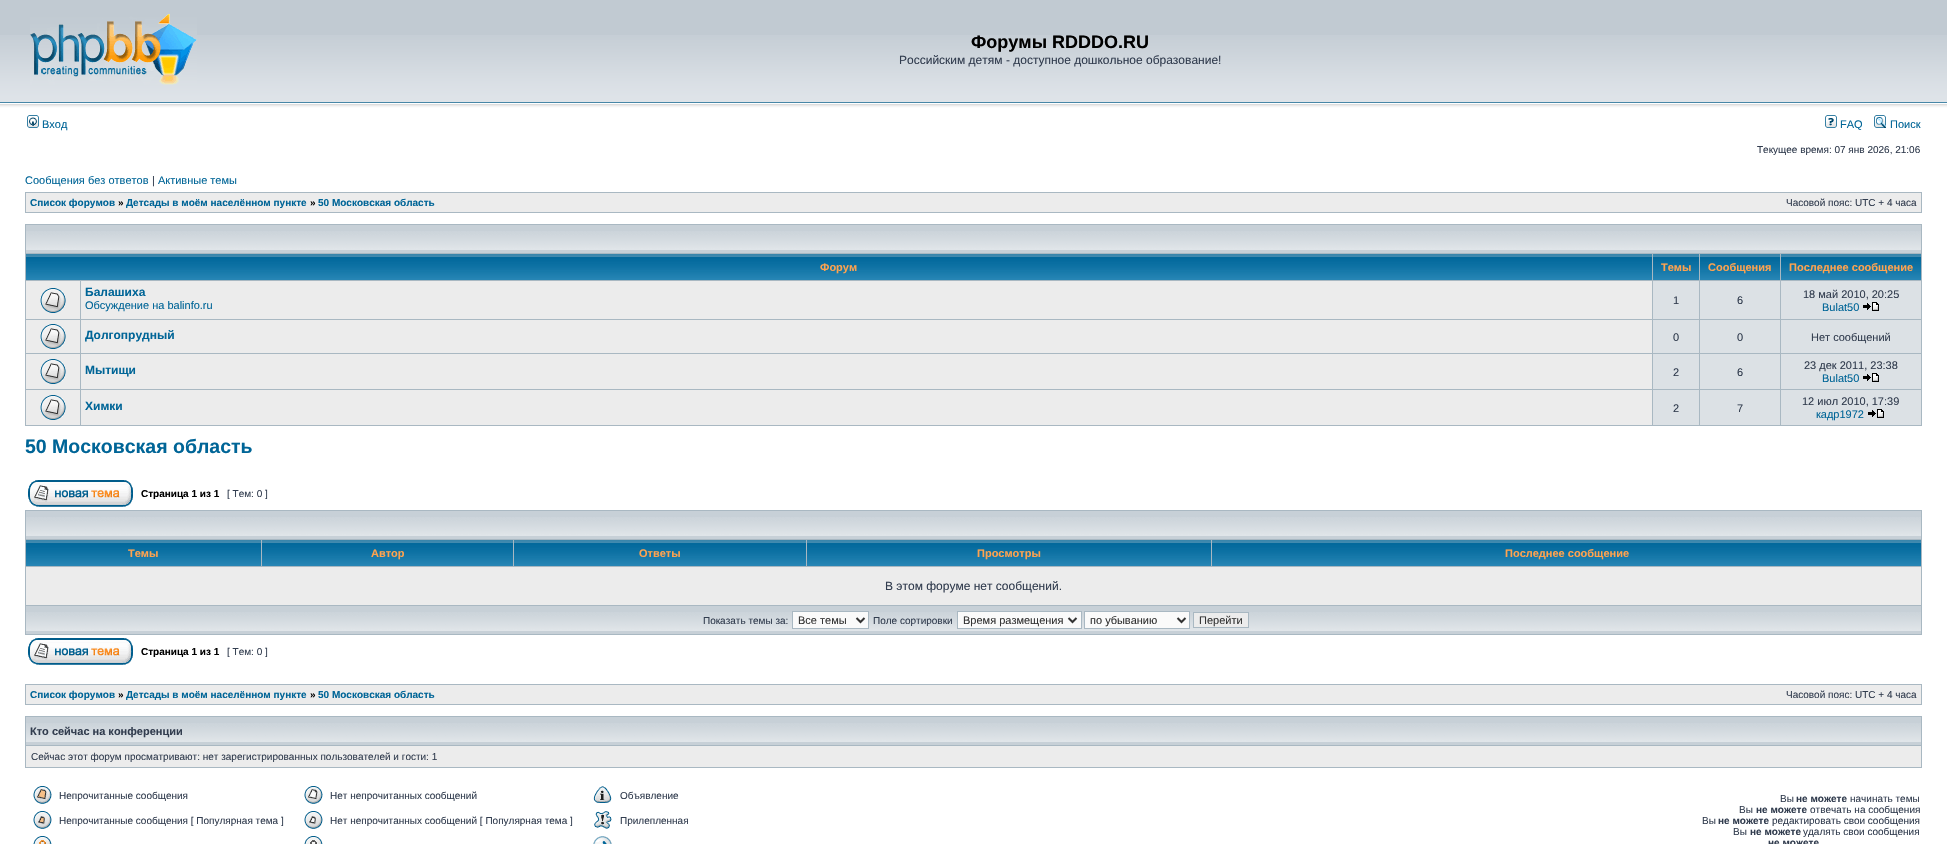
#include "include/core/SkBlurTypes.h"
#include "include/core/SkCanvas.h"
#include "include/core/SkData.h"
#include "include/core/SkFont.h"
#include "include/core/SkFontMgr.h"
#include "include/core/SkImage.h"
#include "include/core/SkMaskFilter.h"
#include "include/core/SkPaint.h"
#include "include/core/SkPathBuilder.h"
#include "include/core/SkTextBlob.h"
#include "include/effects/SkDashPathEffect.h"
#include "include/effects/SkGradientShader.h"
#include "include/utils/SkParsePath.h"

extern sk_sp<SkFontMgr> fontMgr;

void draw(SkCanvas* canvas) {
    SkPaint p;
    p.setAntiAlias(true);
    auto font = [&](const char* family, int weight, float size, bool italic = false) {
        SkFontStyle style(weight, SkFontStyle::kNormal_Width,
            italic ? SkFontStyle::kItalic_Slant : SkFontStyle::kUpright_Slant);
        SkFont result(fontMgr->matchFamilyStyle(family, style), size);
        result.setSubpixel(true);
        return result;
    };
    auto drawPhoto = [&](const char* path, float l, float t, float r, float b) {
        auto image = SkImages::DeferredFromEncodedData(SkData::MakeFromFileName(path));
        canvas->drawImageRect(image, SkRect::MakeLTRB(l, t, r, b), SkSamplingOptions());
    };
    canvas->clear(0xFFFFFFFF);
    p.setColor(0xFFC1CAD2);
    canvas->drawRect(SkRect::MakeLTRB(0, 0, 1947, 35), p);
    drawPhoto("media/1.png", 0, 35, 1947, 113);
    drawPhoto("media/2.png", 30, 14, 197, 85);
    auto font1 = font("Liberation Sans", 700, 18);
    p.setColor(0xFF000000);
    canvas->drawString("Форумы RDDDO.RU", 971, 48, font1, p);
    auto font2 = font("Liberation Sans", 400, 12);
    p.setColor(0xFF323D4F);
    canvas->drawString("Российским детям - доступное дошкольное образование!", 899, 64, font2, p);
    drawPhoto("media/3.png", 27, 115, 39, 128);
    auto font3 = font("Liberation Sans", 400, 11);
    p.setColor(0xFF006597);
    canvas->drawString("Вход", 42, 128, font3, p);
    drawPhoto("media/4.png", 1825, 115, 1837, 128);
    canvas->drawString("FAQ", 1840, 128, font3, p);
    drawPhoto("media/5.png", 1874, 115, 1886, 128);
    canvas->drawString("Поиск", 1890, 128, font3, p);
    auto font4 = font("Liberation Sans", 400, 10);
    p.setColor(0xFF323D4F);
    canvas->drawString("Текущее время: 07 янв 2026, 21:06", 1757, 153, font4, p);
    p.setColor(0xFF006597);
    canvas->drawString("Сообщения без ответов", 25, 184, font3, p);
    p.setColor(0xFF323D4F);
    canvas->drawString("|", 152, 184, font3, p);
    p.setColor(0xFF006597);
    canvas->drawString("Активные темы", 158, 184, font3, p);
    p.setColor(0xFFA9B8C2);
    canvas->drawRect(SkRect::MakeLTRB(25, 192, 1922, 213), p);
    p.setColor(0xFFECECEC);
    canvas->drawRect(SkRect::MakeLTRB(26, 193, 1921, 212), p);
    auto font5 = font("Liberation Sans", 700, 10);
    p.setColor(0xFF006597);
    canvas->drawString("Список форумов", 30, 206, font5, p);
    p.setColor(0xFF000000);
    canvas->drawString("»", 118, 206, font5, p);
    p.setColor(0xFF006597);
    canvas->drawString("Детсады в моём населённом пункте", 126, 206, font5, p);
    p.setColor(0xFF000000);
    canvas->drawString("»", 310, 206, font5, p);
    p.setColor(0xFF006597);
    canvas->drawString("50 Московская область", 318, 206, font5, p);
    p.setColor(0xFF323D4F);
    canvas->drawString("Часовой пояс: UTC + 4 часа", 1786, 206, font4, p);
    p.setColor(0xFFA9B8C2);
    canvas->drawRect(SkRect::MakeLTRB(25, 224, 1922, 426), p);
    p.setColor(0xFFC7D0D7);
    canvas->drawRect(SkRect::MakeLTRB(26, 225, 1921, 253), p);
    drawPhoto("media/6.png", 26, 231, 1921, 250);
    drawPhoto("media/7.png", 26, 254, 1652, 280);
    auto font6 = font("Liberation Sans", 700, 11);
    p.setColor(0xFFFFA34F);
    canvas->drawString("Форум", 820, 271, font6, p);
    drawPhoto("media/8.png", 1653, 254, 1699, 280);
    canvas->drawString("Темы", 1661, 271, font6, p);
    drawPhoto("media/9.png", 1700, 254, 1780, 280);
    canvas->drawString("Сообщения", 1708, 271, font6, p);
    drawPhoto("media/10.png", 1781, 254, 1921, 280);
    canvas->drawString("Последнее сообщение", 1789, 271, font6, p);
    p.setColor(0xFFECECEC);
    canvas->drawRect(SkRect::MakeLTRB(26, 281, 80, 319), p);
    drawPhoto("media/11.png", 40, 288, 66, 313);
    canvas->drawRect(SkRect::MakeLTRB(81, 281, 1652, 319), p);
    auto font7 = font("Liberation Sans", 700, 12);
    p.setColor(0xFF006597);
    canvas->drawString("Балашиха", 85, 296, font7, p);
    canvas->drawString("Обсуждение на balinfo.ru", 85, 309, font3, p);
    p.setColor(0xFFDCE1E5);
    canvas->drawRect(SkRect::MakeLTRB(1653, 281, 1699, 319), p);
    p.setColor(0xFF323D4F);
    canvas->drawString("1", 1673, 304, font3, p);
    p.setColor(0xFFDCE1E5);
    canvas->drawRect(SkRect::MakeLTRB(1700, 281, 1780, 319), p);
    p.setColor(0xFF323D4F);
    canvas->drawString("6", 1737, 304, font3, p);
    p.setColor(0xFFDCE1E5);
    canvas->drawRect(SkRect::MakeLTRB(1781, 281, 1921, 319), p);
    p.setColor(0xFF323D4F);
    canvas->drawString("18 май 2010, 20:25", 1803, 298, font3, p);
    p.setColor(0xFF006597);
    canvas->drawString("Bulat50", 1822, 311, font3, p);
    drawPhoto("media/12.png", 1863, 302, 1879, 311);
    p.setColor(0xFFECECEC);
    canvas->drawRect(SkRect::MakeLTRB(26, 320, 80, 353), p);
    drawPhoto("media/11.png", 40, 324, 66, 349);
    canvas->drawRect(SkRect::MakeLTRB(81, 320, 1652, 353), p);
    p.setColor(0xFF006597);
    canvas->drawString("Долгопрудный", 85, 339, font7, p);
    p.setColor(0xFFDCE1E5);
    canvas->drawRect(SkRect::MakeLTRB(1653, 320, 1699, 353), p);
    p.setColor(0xFF323D4F);
    canvas->drawString("0", 1673, 341, font3, p);
    p.setColor(0xFFDCE1E5);
    canvas->drawRect(SkRect::MakeLTRB(1700, 320, 1780, 353), p);
    p.setColor(0xFF323D4F);
    canvas->drawString("0", 1737, 341, font3, p);
    p.setColor(0xFFDCE1E5);
    canvas->drawRect(SkRect::MakeLTRB(1781, 320, 1921, 353), p);
    p.setColor(0xFF323D4F);
    canvas->drawString("Нет сообщений", 1811, 341, font3, p);
    p.setColor(0xFFECECEC);
    canvas->drawRect(SkRect::MakeLTRB(26, 354, 80, 389), p);
    drawPhoto("media/11.png", 40, 359, 66, 384);
    canvas->drawRect(SkRect::MakeLTRB(81, 354, 1652, 389), p);
    p.setColor(0xFF006597);
    canvas->drawString("Мытищи", 85, 374, font7, p);
    p.setColor(0xFFDCE1E5);
    canvas->drawRect(SkRect::MakeLTRB(1653, 354, 1699, 389), p);
    p.setColor(0xFF323D4F);
    canvas->drawString("2", 1673, 376, font3, p);
    p.setColor(0xFFDCE1E5);
    canvas->drawRect(SkRect::MakeLTRB(1700, 354, 1780, 389), p);
    p.setColor(0xFF323D4F);
    canvas->drawString("6", 1737, 376, font3, p);
    p.setColor(0xFFDCE1E5);
    canvas->drawRect(SkRect::MakeLTRB(1781, 354, 1921, 389), p);
    p.setColor(0xFF323D4F);
    canvas->drawString("23 дек 2011, 23:38", 1804, 369, font3, p);
    p.setColor(0xFF006597);
    canvas->drawString("Bulat50", 1822, 382, font3, p);
    drawPhoto("media/12.png", 1863, 373, 1879, 382);
    p.setColor(0xFFECECEC);
    canvas->drawRect(SkRect::MakeLTRB(26, 390, 80, 425), p);
    drawPhoto("media/11.png", 40, 395, 66, 420);
    canvas->drawRect(SkRect::MakeLTRB(81, 390, 1652, 425), p);
    p.setColor(0xFF006597);
    canvas->drawString("Химки", 85, 410, font7, p);
    p.setColor(0xFFDCE1E5);
    canvas->drawRect(SkRect::MakeLTRB(1653, 390, 1699, 425), p);
    p.setColor(0xFF323D4F);
    canvas->drawString("2", 1673, 412, font3, p);
    p.setColor(0xFFDCE1E5);
    canvas->drawRect(SkRect::MakeLTRB(1700, 390, 1780, 425), p);
    p.setColor(0xFF323D4F);
    canvas->drawString("7", 1737, 412, font3, p);
    p.setColor(0xFFDCE1E5);
    canvas->drawRect(SkRect::MakeLTRB(1781, 390, 1921, 425), p);
    p.setColor(0xFF323D4F);
    canvas->drawString("12 июл 2010, 17:39", 1802, 405, font3, p);
    p.setColor(0xFF006597);
    canvas->drawString("кадр1972", 1816, 418, font3, p);
    drawPhoto("media/12.png", 1868, 409, 1884, 418);
    auto font8 = font("Liberation Sans", 700, 19.5f);
    canvas->drawString("50 Московская область", 25, 453, font8, p);
    drawPhoto("media/13.png", 28, 480, 133, 507);
    p.setColor(0xFF000000);
    canvas->drawString("Страница 1 из 1", 141, 497, font5, p);
    p.setColor(0xFF323D4F);
    canvas->drawString("[ Тем: 0 ]", 227, 497, font4, p);
    p.setColor(0xFFA9B8C2);
    canvas->drawRect(SkRect::MakeLTRB(25, 510, 1922, 635), p);
    p.setColor(0xFFC7D0D7);
    canvas->drawRect(SkRect::MakeLTRB(26, 511, 1921, 539), p);
    drawPhoto("media/6.png", 26, 517, 1921, 536);
    drawPhoto("media/14.png", 26, 540, 261, 566);
    p.setColor(0xFFFFA34F);
    canvas->drawString("Темы", 128, 557, font6, p);
    drawPhoto("media/15.png", 262, 540, 513, 566);
    canvas->drawString("Автор", 371, 557, font6, p);
    drawPhoto("media/16.png", 514, 540, 806, 566);
    canvas->drawString("Ответы", 639, 557, font6, p);
    drawPhoto("media/17.png", 807, 540, 1211, 566);
    canvas->drawString("Просмотры", 977, 557, font6, p);
    drawPhoto("media/18.png", 1212, 540, 1921, 566);
    canvas->drawString("Последнее сообщение", 1505, 557, font6, p);
    p.setColor(0xFFECECEC);
    canvas->drawRect(SkRect::MakeLTRB(26, 567, 1921, 605), p);
    p.setColor(0xFF323D4F);
    canvas->drawString("В этом форуме нет сообщений.", 885, 590, font2, p);
    p.setColor(0xFFC7D0D7);
    canvas->drawRect(SkRect::MakeLTRB(26, 606, 1921, 634), p);
    drawPhoto("media/6.png", 26, 612, 1921, 631);
    p.setColor(0xFF323D4F);
    canvas->drawString("Показать темы за:", 703, 624, font4, p);
    p.setColor(0xFFFAFAFA);
    canvas->drawRect(SkRect::MakeLTRB(792.5f, 611.5f, 868.5f, 628.5f), p);
    p.setStyle(SkPaint::kStroke_Style);
    p.setStrokeWidth(1);
    p.setColor(0xFFA9B8C2);
    canvas->drawRect(SkRect::MakeLTRB(792.5f, 611.5f, 868.5f, 628.5f), p);
    p.setStrokeWidth(2);
    p.setColor(0xFF333333);
    canvas->drawPath(SkPathBuilder().moveTo(856.5f, 618).lineTo(860.5f, 622).lineTo(864.5f, 618).detach(), p);
    p.setStyle(SkPaint::kFill_Style);
    canvas->drawString("Все темы", 798, 624, font3, p);
    p.setColor(0xFF323D4F);
    canvas->drawString("Поле сортировки", 873, 624, font4, p);
    p.setColor(0xFFFAFAFA);
    canvas->drawRect(SkRect::MakeLTRB(957.5f, 611.5f, 1081.5f, 628.5f), p);
    p.setStyle(SkPaint::kStroke_Style);
    p.setStrokeWidth(1);
    p.setColor(0xFFA9B8C2);
    canvas->drawRect(SkRect::MakeLTRB(957.5f, 611.5f, 1081.5f, 628.5f), p);
    p.setStrokeWidth(2);
    p.setColor(0xFF333333);
    canvas->drawPath(SkPathBuilder().moveTo(1068.5f, 618).lineTo(1072.5f, 622).lineTo(1076.5f, 618).detach(), p);
    p.setStyle(SkPaint::kFill_Style);
    canvas->drawString("Время размещения", 963, 624, font3, p);
    p.setColor(0xFFFAFAFA);
    canvas->drawRect(SkRect::MakeLTRB(1084.5f, 611.5f, 1189.5f, 628.5f), p);
    p.setStyle(SkPaint::kStroke_Style);
    p.setStrokeWidth(1);
    p.setColor(0xFFA9B8C2);
    canvas->drawRect(SkRect::MakeLTRB(1084.5f, 611.5f, 1189.5f, 628.5f), p);
    p.setStrokeWidth(2);
    p.setColor(0xFF333333);
    canvas->drawPath(SkPathBuilder().moveTo(1177.5f, 618).lineTo(1181.5f, 622).lineTo(1185.5f, 618).detach(), p);
    p.setStyle(SkPaint::kFill_Style);
    canvas->drawString("по убыванию", 1090, 624, font3, p);
    p.setColor(0xFFECECEC);
    canvas->drawRect(SkRect::MakeLTRB(1193.5f, 612.5f, 1248.5f, 627.5f), p);
    p.setStyle(SkPaint::kStroke_Style);
    p.setStrokeWidth(1);
    p.setColor(0xFFA9B8C2);
    canvas->drawRect(SkRect::MakeLTRB(1193.5f, 612.5f, 1248.5f, 627.5f), p);
    p.setStyle(SkPaint::kFill_Style);
    p.setColor(0xFF333333);
    canvas->drawString("Перейти", 1199, 624, font3, p);
    drawPhoto("media/13.png", 28, 638, 133, 665);
    p.setColor(0xFF000000);
    canvas->drawString("Страница 1 из 1", 141, 655, font5, p);
    p.setColor(0xFF323D4F);
    canvas->drawString("[ Тем: 0 ]", 227, 655, font4, p);
    p.setColor(0xFFA9B8C2);
    canvas->drawRect(SkRect::MakeLTRB(25, 684, 1922, 705), p);
    p.setColor(0xFFECECEC);
    canvas->drawRect(SkRect::MakeLTRB(26, 685, 1921, 704), p);
    p.setColor(0xFF006597);
    canvas->drawString("Список форумов", 30, 698, font5, p);
    p.setColor(0xFF000000);
    canvas->drawString("»", 118, 698, font5, p);
    p.setColor(0xFF006597);
    canvas->drawString("Детсады в моём населённом пункте", 126, 698, font5, p);
    p.setColor(0xFF000000);
    canvas->drawString("»", 310, 698, font5, p);
    p.setColor(0xFF006597);
    canvas->drawString("50 Московская область", 318, 698, font5, p);
    p.setColor(0xFF323D4F);
    canvas->drawString("Часовой пояс: UTC + 4 часа", 1786, 698, font4, p);
    p.setColor(0xFFA9B8C2);
    canvas->drawRect(SkRect::MakeLTRB(25, 716, 1922, 768), p);
    p.setColor(0xFFC7D0D7);
    canvas->drawRect(SkRect::MakeLTRB(26, 717, 1921, 745), p);
    drawPhoto("media/6.png", 26, 723, 1921, 742);
    p.setColor(0xFF323D4F);
    canvas->drawString("Кто сейчас на конференции", 30, 735, font6, p);
    p.setColor(0xFFECECEC);
    canvas->drawRect(SkRect::MakeLTRB(26, 746, 1921, 767), p);
    p.setColor(0xFF323D4F);
    canvas->drawString("Сейчас этот форум просматривают: нет зарегистрированных пользователей и гости: 1", 31, 760, font4, p);
    drawPhoto("media/19.png", 33, 786, 52, 804);
    canvas->drawString("Непрочитанные сообщения", 59, 799, font4, p);
    drawPhoto("media/20.png", 304, 786, 323, 804);
    canvas->drawString("Нет непрочитанных сообщений", 330, 799, font4, p);
    drawPhoto("media/21.png", 593, 786, 612, 803);
    canvas->drawString("Объявление", 620, 799, font4, p);
    drawPhoto("media/22.png", 33, 811, 52, 829);
    canvas->drawString("Непрочитанные сообщения [ Популярная тема ]", 59, 824, font4, p);
    drawPhoto("media/23.png", 304, 811, 323, 829);
    canvas->drawString("Нет непрочитанных сообщений [ Популярная тема ]", 330, 824, font4, p);
    drawPhoto("media/24.png", 594, 811, 612, 829);
    canvas->drawString("Прилепленная", 620, 824, font4, p);
    drawPhoto("media/25.png", 33, 836, 52, 844);
    drawPhoto("media/26.png", 304, 836, 323, 844);
    drawPhoto("media/27.png", 593, 836, 612, 844);
    canvas->drawString("Вы", 1780, 802, font4, p);
    canvas->drawString("не можете", 1796, 802, font5, p);
    canvas->drawString("начинать темы", 1850, 802, font4, p);
    canvas->drawString("Вы", 1739, 813, font4, p);
    canvas->drawString("не можете", 1756, 813, font5, p);
    canvas->drawString("отвечать на сообщения", 1810, 813, font4, p);
    canvas->drawString("Вы", 1702, 824, font4, p);
    canvas->drawString("не можете", 1718, 824, font5, p);
    canvas->drawString("редактировать свои сообщения", 1772, 824, font4, p);
    canvas->drawString("Вы", 1733, 835, font4, p);
    canvas->drawString("не можете", 1750, 835, font5, p);
    canvas->drawString("удалять свои сообщения", 1803, 835, font4, p);
    canvas->drawString("не можете", 1768, 846, font5, p);
}
